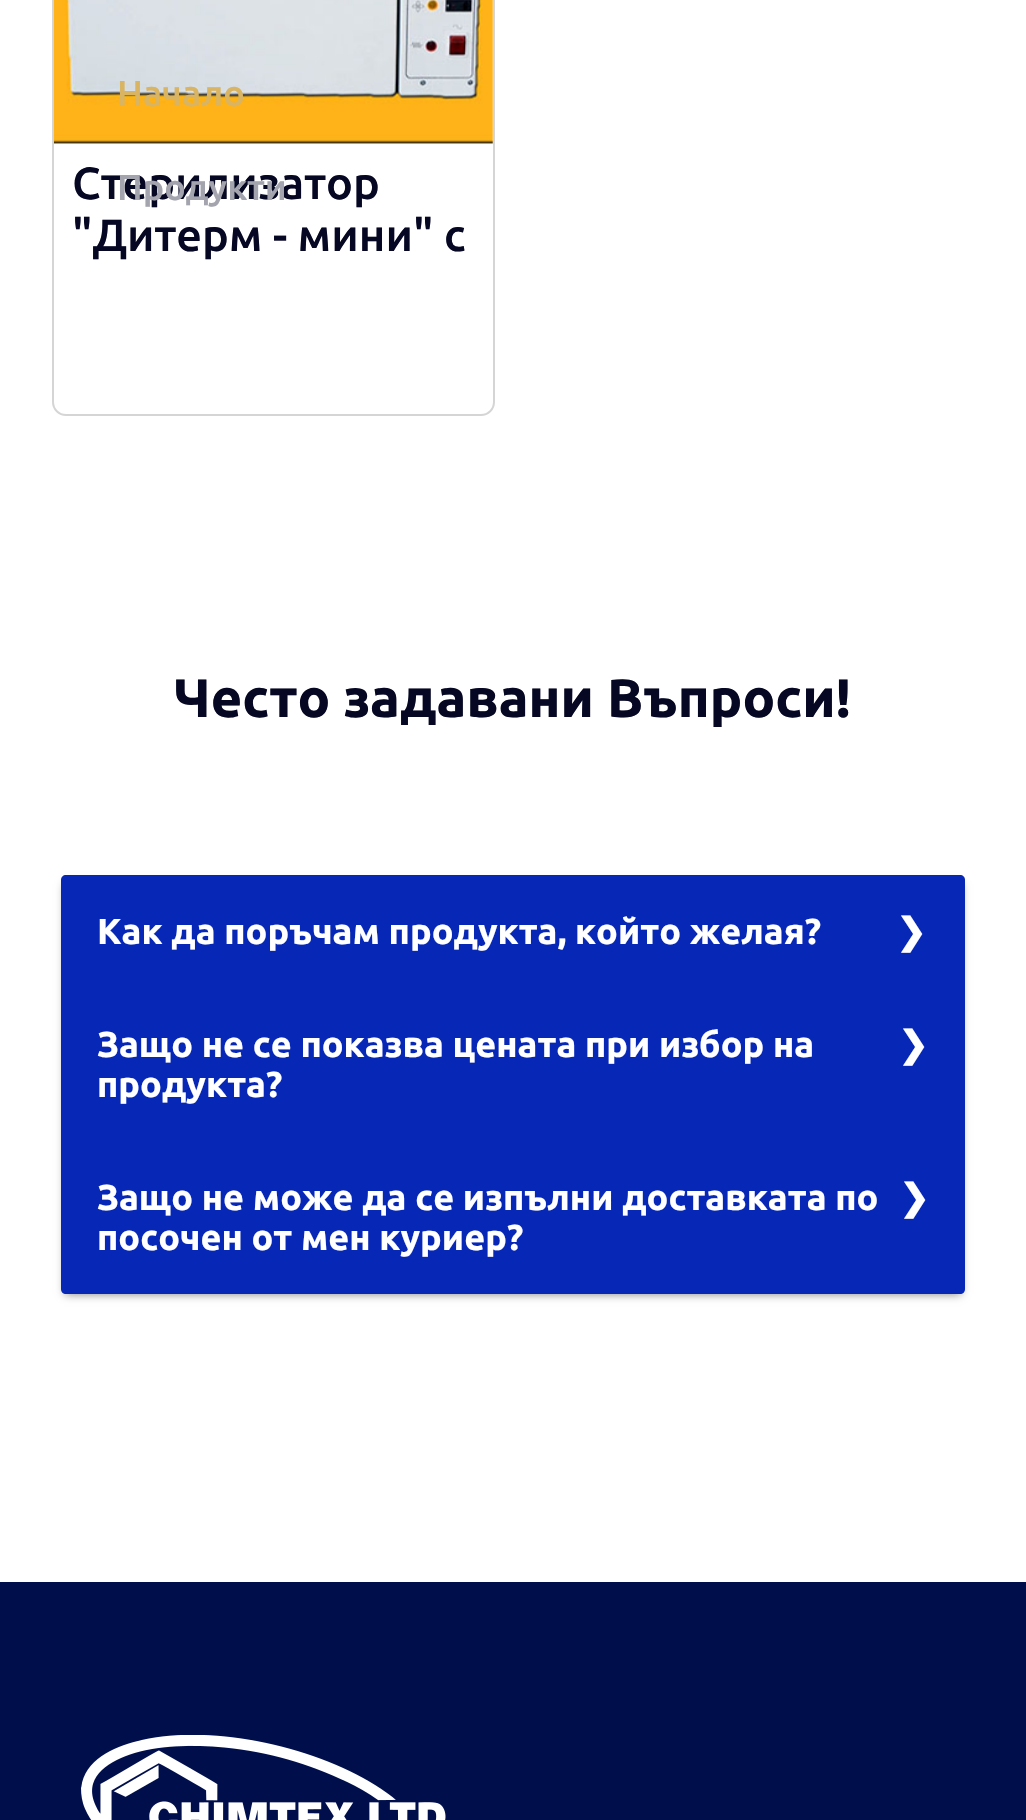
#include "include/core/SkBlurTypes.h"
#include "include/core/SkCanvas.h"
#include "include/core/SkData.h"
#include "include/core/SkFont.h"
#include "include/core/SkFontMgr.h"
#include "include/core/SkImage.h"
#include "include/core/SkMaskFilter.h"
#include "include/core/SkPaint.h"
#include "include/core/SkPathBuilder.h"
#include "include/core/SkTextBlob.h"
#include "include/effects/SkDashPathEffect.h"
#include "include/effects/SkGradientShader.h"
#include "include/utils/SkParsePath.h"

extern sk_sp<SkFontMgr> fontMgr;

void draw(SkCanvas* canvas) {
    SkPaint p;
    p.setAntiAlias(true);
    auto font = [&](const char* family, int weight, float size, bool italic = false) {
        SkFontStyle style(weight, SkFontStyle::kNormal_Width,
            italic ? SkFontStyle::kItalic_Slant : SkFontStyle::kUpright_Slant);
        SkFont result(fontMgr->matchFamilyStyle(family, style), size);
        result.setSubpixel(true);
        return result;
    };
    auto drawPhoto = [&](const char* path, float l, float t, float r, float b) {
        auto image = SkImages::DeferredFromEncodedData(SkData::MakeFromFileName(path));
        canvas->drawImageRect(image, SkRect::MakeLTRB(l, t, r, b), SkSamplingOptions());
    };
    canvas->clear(0xFFFFFFFF);
    p.setStyle(SkPaint::kStroke_Style);
    p.setStrokeWidth(2);
    p.setColor(0xFFD5D5D5);
    canvas->drawRoundRect(SkRect::MakeLTRB(53, -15, 494, 415), 13, 13, p);
    drawPhoto("media/1.png", 54, 0, 493, 144);
    auto font1 = font("Ubuntu", 500, 36);
    p.setStyle(SkPaint::kFill_Style);
    p.setColor(0xFFD8B463);
    canvas->drawString("Начало", 117, 106, font1, p);
    auto font2 = font("Ubuntu", 500, 45);
    p.setColor(0xFF050723);
    canvas->drawString("Стерилизатор", 72, 199, font2, p);
    p.setColor(0xFFA3A4AE);
    canvas->drawString("Продукти", 117, 200, font1, p);
    p.setColor(0xFF050723);
    canvas->drawString("\"Дитерм - мини\" с", 72, 251, font2, p);
    auto font3 = font("Ubuntu", 700, 54);
    canvas->drawString("Често задавани Въпроси!", 174, 717, font3, p);
    p.setColor(0x80000000);
    p.setMaskFilter(SkMaskFilter::MakeBlur(kNormal_SkBlurStyle, 4.5f));
    canvas->drawRect(SkRect::MakeLTRB(65, 884, 961, 1294), p);
    p.setMaskFilter(nullptr);
    p.setColor(0xFF0727B7);
    canvas->drawPath(SkPathBuilder().moveTo(66, 875).lineTo(960, 875).cubicTo(963, 875, 965, 877, 965, 880).lineTo(965, 988).lineTo(61, 988).lineTo(61, 880).cubicTo(61, 877, 63, 875, 66, 875).close().detach(), p);
    auto font4 = font("Ubuntu", 700, 36);
    p.setColor(0xFFFFFFFF);
    canvas->drawString("Как да поръчам продукта, който желая?", 97, 944, font4, p);
    auto font5 = font("DejaVu Sans", 700, 36);
    canvas->drawString("❯", 896, 944, font5, p);
    p.setColor(0xFF0727B7);
    canvas->drawRect(SkRect::MakeLTRB(61, 988, 965, 1141), p);
    p.setColor(0xFFFFFFFF);
    canvas->drawString("Защо не се показва цената при избор на", 97, 1057, font4, p);
    canvas->drawString("❯", 898, 1057, font5, p);
    canvas->drawString("продукта?", 97, 1097, font4, p);
    p.setColor(0xFF0727B7);
    canvas->drawPath(SkPathBuilder().moveTo(61, 1141).lineTo(965, 1141).lineTo(965, 1289).cubicTo(965, 1292, 963, 1294, 960, 1294).lineTo(66, 1294).cubicTo(63, 1294, 61, 1292, 61, 1289).close().detach(), p);
    p.setColor(0xFFFFFFFF);
    canvas->drawString("Защо не може да се изпълни доставката по", 97, 1210, font4, p);
    canvas->drawString("❯", 899, 1210, font5, p);
    canvas->drawString("посочен от мен куриер?", 97, 1250, font4, p);
    p.setColor(0xFF000E4B);
    canvas->drawRect(SkRect::MakeLTRB(0, 1582, 1026, 1820), p);
    drawPhoto("media/2.png", 81, 1735, 446, 1820);
}
